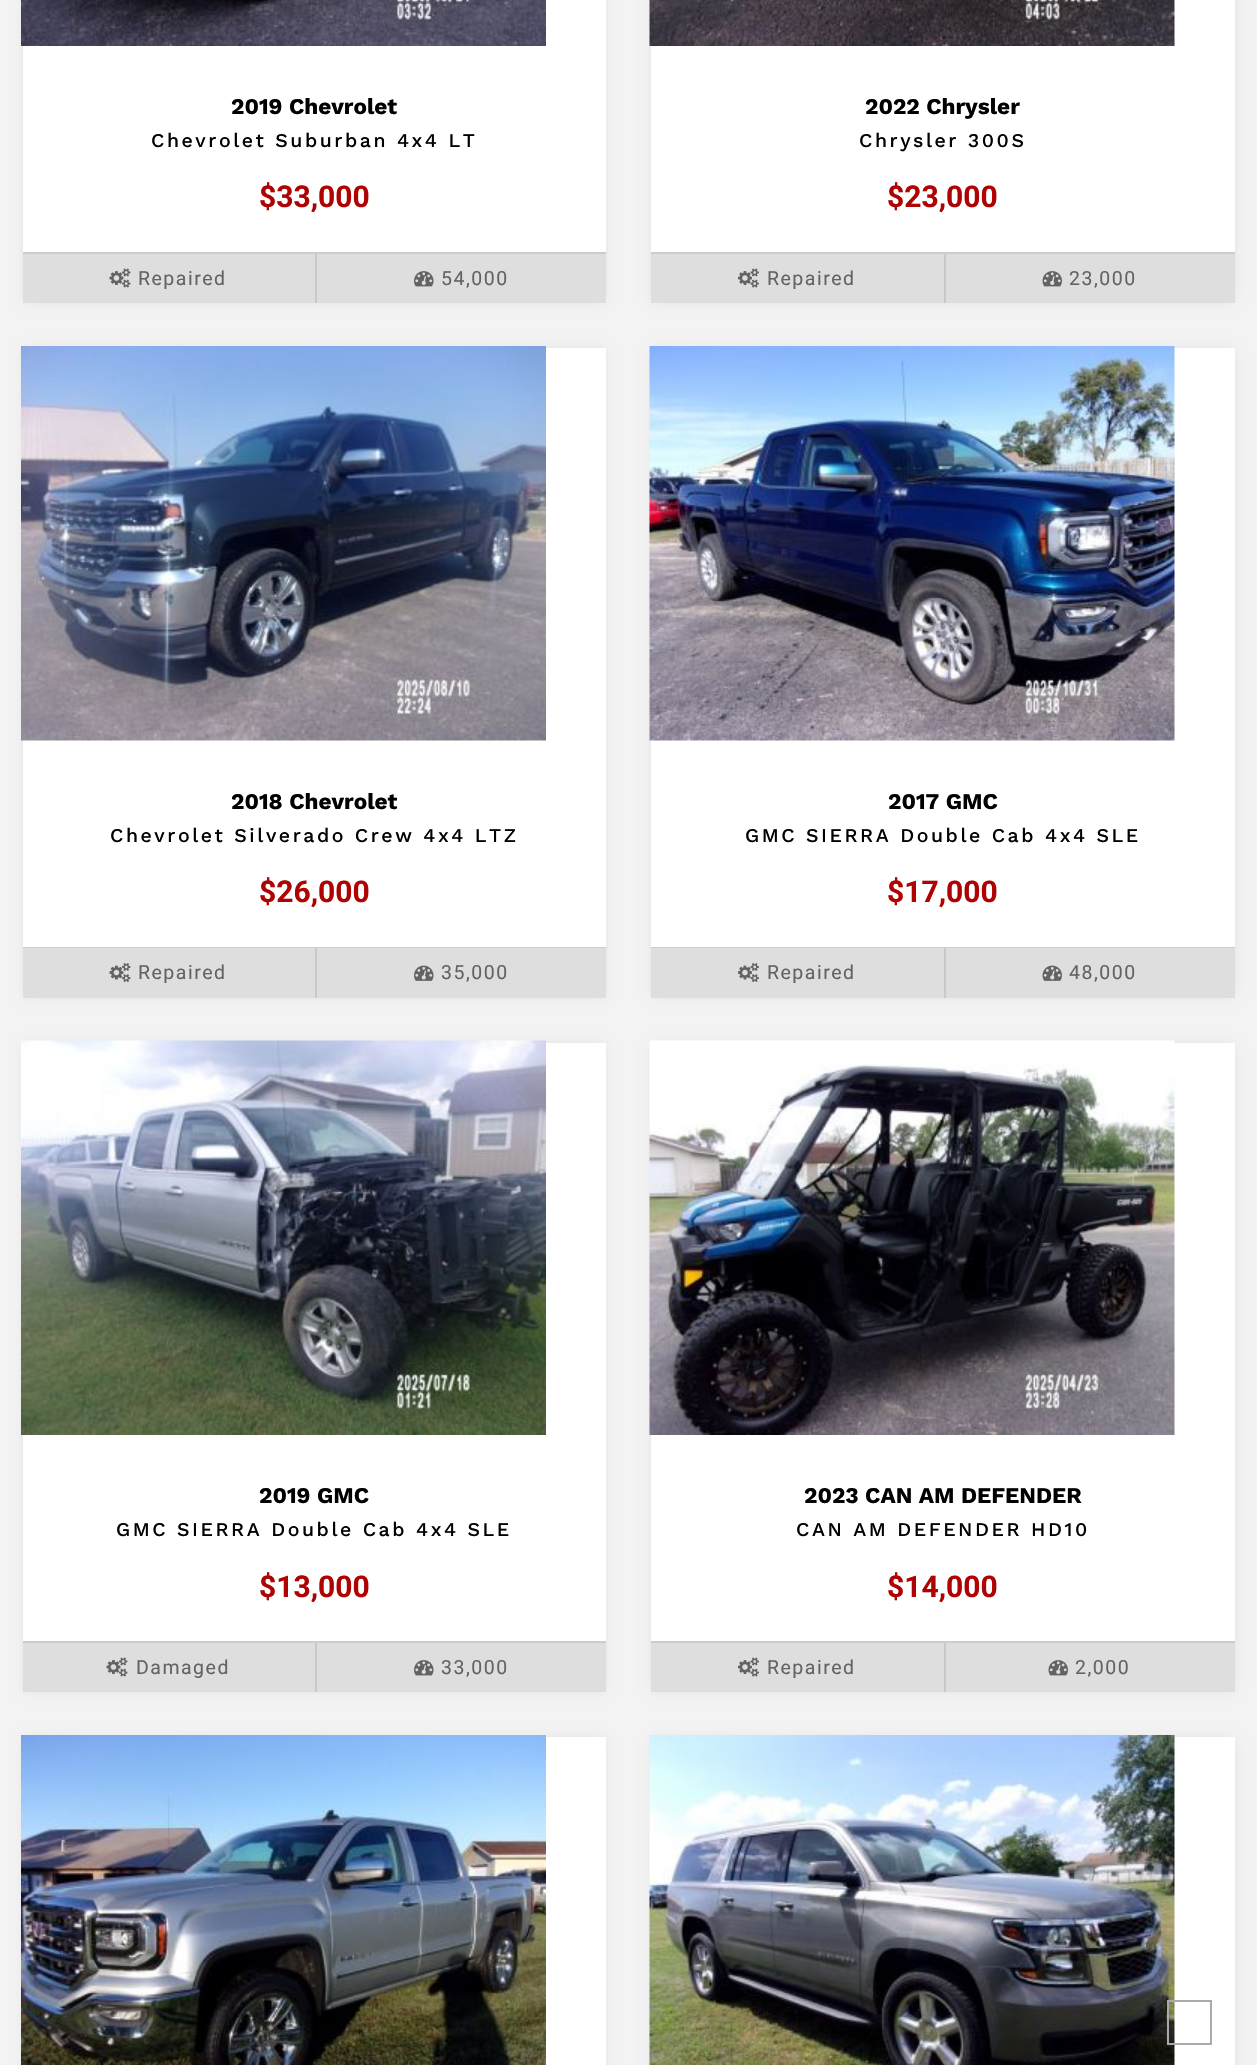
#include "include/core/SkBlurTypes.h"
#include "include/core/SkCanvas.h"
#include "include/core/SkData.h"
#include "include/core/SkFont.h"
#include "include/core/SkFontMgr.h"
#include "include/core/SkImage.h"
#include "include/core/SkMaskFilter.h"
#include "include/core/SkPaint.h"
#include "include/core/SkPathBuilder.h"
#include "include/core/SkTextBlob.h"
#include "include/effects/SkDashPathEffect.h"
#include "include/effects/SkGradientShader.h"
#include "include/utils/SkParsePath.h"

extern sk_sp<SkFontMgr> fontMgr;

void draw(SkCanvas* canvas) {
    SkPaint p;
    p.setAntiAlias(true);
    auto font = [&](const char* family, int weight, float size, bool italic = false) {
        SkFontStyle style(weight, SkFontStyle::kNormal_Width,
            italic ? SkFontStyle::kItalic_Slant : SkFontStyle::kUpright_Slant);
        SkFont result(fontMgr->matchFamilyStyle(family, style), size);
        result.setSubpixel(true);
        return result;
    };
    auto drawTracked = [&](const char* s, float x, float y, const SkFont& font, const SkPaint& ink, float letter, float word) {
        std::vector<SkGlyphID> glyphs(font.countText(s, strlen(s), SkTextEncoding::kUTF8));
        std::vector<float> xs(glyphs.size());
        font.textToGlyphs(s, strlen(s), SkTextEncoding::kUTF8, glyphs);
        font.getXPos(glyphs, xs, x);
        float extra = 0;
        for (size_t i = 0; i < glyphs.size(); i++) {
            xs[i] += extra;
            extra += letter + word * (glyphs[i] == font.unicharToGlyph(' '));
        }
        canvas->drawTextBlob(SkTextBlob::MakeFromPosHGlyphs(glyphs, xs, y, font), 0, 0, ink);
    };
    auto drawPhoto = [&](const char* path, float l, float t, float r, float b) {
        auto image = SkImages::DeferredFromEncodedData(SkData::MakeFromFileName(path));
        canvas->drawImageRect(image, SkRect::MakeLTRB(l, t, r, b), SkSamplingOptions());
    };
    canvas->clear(0xFFF3F3F3);
    p.setColor(0x1A000000);
    p.setMaskFilter(SkMaskFilter::MakeBlur(kNormal_SkBlurStyle, 6));
    canvas->drawRect(SkRect::MakeLTRB(26, -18, 603, 300), p);
    p.setMaskFilter(nullptr);
    p.setColor(0xFFFFFFFF);
    canvas->drawRect(SkRect::MakeLTRB(23, 0, 606, 252), p);
    drawPhoto("media/1.png", 21, 0, 546, 46);
    auto font1 = font("Work Sans", 700, 22.5f);
    p.setColor(0xFF000000);
    canvas->drawString("2019 Chevrolet", 231, 114, font1, p);
    auto font2 = font("Work Sans", 500, 19.5f);
    drawTracked("Chevrolet Suburban 4x4 LT", 151, 147, font2, p, 2.55f, 0);
    auto font3 = font("Roboto", 700, 30);
    p.setColor(0xFFAE0302);
    canvas->drawString("$33,000", 259, 207, font3, p);
    p.setColor(0xFFCCCCCC);
    canvas->drawRect(SkRect::MakeLTRB(23, 252, 606, 254), p);
    p.setColor(0xFFDEDEDE);
    canvas->drawRect(SkRect::MakeLTRB(23, 254, 606, 303), p);
    drawPhoto("media/2.png", 109, 268, 131, 288);
    auto font4 = font("Roboto", 400, 19.5f);
    p.setColor(0xFF636363);
    drawTracked("Repaired", 138, 285, font4, p, 1.5f, 0);
    p.setColor(0xFFC9C9C9);
    canvas->drawRect(SkRect::MakeLTRB(315, 254, 317, 303), p);
    drawPhoto("media/3.png", 414, 271, 434, 287);
    p.setColor(0xFF636363);
    drawTracked("54,000", 441, 285, font4, p, 1.5f, 0);
    p.setColor(0x1A000000);
    p.setMaskFilter(SkMaskFilter::MakeBlur(kNormal_SkBlurStyle, 6));
    canvas->drawRect(SkRect::MakeLTRB(654, -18, 1232, 300), p);
    p.setMaskFilter(nullptr);
    p.setColor(0xFFFFFFFF);
    canvas->drawRect(SkRect::MakeLTRB(651, 0, 1235, 252), p);
    drawPhoto("media/4.png", 649, 0, 1175, 46);
    p.setColor(0xFF000000);
    canvas->drawString("2022 Chrysler", 865, 114, font1, p);
    drawTracked("Chrysler 300S", 859, 147, font2, p, 2.55f, 0);
    p.setColor(0xFFAE0302);
    canvas->drawString("$23,000", 887, 207, font3, p);
    p.setColor(0xFFCCCCCC);
    canvas->drawRect(SkRect::MakeLTRB(651, 252, 1235, 254), p);
    p.setColor(0xFFDEDEDE);
    canvas->drawRect(SkRect::MakeLTRB(651, 254, 1235, 303), p);
    drawPhoto("media/5.png", 738, 268, 759, 288);
    p.setColor(0xFF636363);
    drawTracked("Repaired", 767, 285, font4, p, 1.5f, 0);
    p.setColor(0xFFC9C9C9);
    canvas->drawRect(SkRect::MakeLTRB(944, 254, 946, 303), p);
    drawPhoto("media/6.png", 1042, 271, 1062, 287);
    p.setColor(0xFF636363);
    drawTracked("23,000", 1069, 285, font4, p, 1.5f, 0);
    p.setColor(0x1A000000);
    p.setMaskFilter(SkMaskFilter::MakeBlur(kNormal_SkBlurStyle, 6));
    canvas->drawRect(SkRect::MakeLTRB(26, 351, 603, 995), p);
    p.setMaskFilter(nullptr);
    p.setColor(0xFFFFFFFF);
    canvas->drawRect(SkRect::MakeLTRB(23, 348, 606, 947), p);
    drawPhoto("media/7.png", 21, 346, 546, 741);
    p.setColor(0xFF000000);
    canvas->drawString("2018 Chevrolet", 231, 809, font1, p);
    drawTracked("Chevrolet Silverado Crew 4x4 LTZ", 110, 842, font2, p, 2.55f, 0);
    p.setColor(0xFFAE0302);
    canvas->drawString("$26,000", 259, 902, font3, p);
    p.setColor(0xFFCCCCCC);
    canvas->drawRect(SkRect::MakeLTRB(23, 947, 606, 948), p);
    p.setColor(0xFFDEDEDE);
    canvas->drawRect(SkRect::MakeLTRB(23, 948, 606, 998), p);
    drawPhoto("media/8.png", 109, 963, 131, 982);
    p.setColor(0xFF636363);
    drawTracked("Repaired", 138, 979, font4, p, 1.5f, 0);
    p.setColor(0xFFC9C9C9);
    canvas->drawRect(SkRect::MakeLTRB(315, 948, 317, 998), p);
    drawPhoto("media/9.png", 414, 965, 434, 981);
    p.setColor(0xFF636363);
    drawTracked("35,000", 441, 979, font4, p, 1.5f, 0);
    p.setColor(0x1A000000);
    p.setMaskFilter(SkMaskFilter::MakeBlur(kNormal_SkBlurStyle, 6));
    canvas->drawRect(SkRect::MakeLTRB(654, 351, 1232, 995), p);
    p.setMaskFilter(nullptr);
    p.setColor(0xFFFFFFFF);
    canvas->drawRect(SkRect::MakeLTRB(651, 348, 1235, 947), p);
    drawPhoto("media/10.png", 649, 346, 1175, 741);
    p.setColor(0xFF000000);
    canvas->drawString("2017 GMC", 888, 809, font1, p);
    drawTracked("GMC SIERRA Double Cab 4x4 SLE", 745, 842, font2, p, 2.55f, 0);
    p.setColor(0xFFAE0302);
    canvas->drawString("$17,000", 887, 902, font3, p);
    p.setColor(0xFFCCCCCC);
    canvas->drawRect(SkRect::MakeLTRB(651, 947, 1235, 948), p);
    p.setColor(0xFFDEDEDE);
    canvas->drawRect(SkRect::MakeLTRB(651, 948, 1235, 998), p);
    drawPhoto("media/11.png", 738, 963, 759, 982);
    p.setColor(0xFF636363);
    drawTracked("Repaired", 767, 979, font4, p, 1.5f, 0);
    p.setColor(0xFFC9C9C9);
    canvas->drawRect(SkRect::MakeLTRB(944, 948, 946, 998), p);
    drawPhoto("media/12.png", 1042, 965, 1062, 981);
    p.setColor(0xFF636363);
    drawTracked("48,000", 1069, 979, font4, p, 1.5f, 0);
    p.setColor(0x1A000000);
    p.setMaskFilter(SkMaskFilter::MakeBlur(kNormal_SkBlurStyle, 6));
    canvas->drawRect(SkRect::MakeLTRB(26, 1046, 603, 1689), p);
    p.setMaskFilter(nullptr);
    p.setColor(0xFFFFFFFF);
    canvas->drawRect(SkRect::MakeLTRB(23, 1043, 606, 1641), p);
    drawPhoto("media/13.png", 21, 1040, 546, 1435);
    p.setColor(0xFF000000);
    canvas->drawString("2019 GMC", 259, 1503, font1, p);
    drawTracked("GMC SIERRA Double Cab 4x4 SLE", 116, 1536, font2, p, 2.55f, 0);
    p.setColor(0xFFAE0302);
    canvas->drawString("$13,000", 259, 1597, font3, p);
    p.setColor(0xFFCCCCCC);
    canvas->drawRect(SkRect::MakeLTRB(23, 1641, 606, 1643), p);
    p.setColor(0xFFDEDEDE);
    canvas->drawRect(SkRect::MakeLTRB(23, 1643, 606, 1692), p);
    drawPhoto("media/2.png", 106, 1657, 128, 1677);
    p.setColor(0xFF636363);
    drawTracked("Damaged", 136, 1674, font4, p, 1.5f, 0);
    p.setColor(0xFFC9C9C9);
    canvas->drawRect(SkRect::MakeLTRB(315, 1643, 317, 1692), p);
    drawPhoto("media/3.png", 414, 1660, 434, 1676);
    p.setColor(0xFF636363);
    drawTracked("33,000", 441, 1674, font4, p, 1.5f, 0);
    p.setColor(0x1A000000);
    p.setMaskFilter(SkMaskFilter::MakeBlur(kNormal_SkBlurStyle, 6));
    canvas->drawRect(SkRect::MakeLTRB(654, 1046, 1232, 1689), p);
    p.setMaskFilter(nullptr);
    p.setColor(0xFFFFFFFF);
    canvas->drawRect(SkRect::MakeLTRB(651, 1043, 1235, 1641), p);
    drawPhoto("media/14.png", 649, 1040, 1175, 1435);
    p.setColor(0xFF000000);
    canvas->drawString("2023 CAN AM DEFENDER", 804, 1503, font1, p);
    drawTracked("CAN AM DEFENDER HD10", 796, 1536, font2, p, 2.55f, 0);
    p.setColor(0xFFAE0302);
    canvas->drawString("$14,000", 887, 1597, font3, p);
    p.setColor(0xFFCCCCCC);
    canvas->drawRect(SkRect::MakeLTRB(651, 1641, 1235, 1643), p);
    p.setColor(0xFFDEDEDE);
    canvas->drawRect(SkRect::MakeLTRB(651, 1643, 1235, 1692), p);
    drawPhoto("media/5.png", 738, 1657, 759, 1677);
    p.setColor(0xFF636363);
    drawTracked("Repaired", 767, 1674, font4, p, 1.5f, 0);
    p.setColor(0xFFC9C9C9);
    canvas->drawRect(SkRect::MakeLTRB(944, 1643, 946, 1692), p);
    drawPhoto("media/6.png", 1048, 1660, 1068, 1676);
    p.setColor(0xFF636363);
    drawTracked("2,000", 1075, 1674, font4, p, 1.5f, 0);
    p.setColor(0x1A000000);
    p.setMaskFilter(SkMaskFilter::MakeBlur(kNormal_SkBlurStyle, 6));
    canvas->drawRect(SkRect::MakeLTRB(26, 1740, 603, 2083), p);
    p.setMaskFilter(nullptr);
    p.setColor(0xFFFFFFFF);
    canvas->drawRect(SkRect::MakeLTRB(546, 1737, 606, 2065), p);
    drawPhoto("media/15.png", 21, 1735, 546, 2065);
    p.setColor(0x1A000000);
    p.setMaskFilter(SkMaskFilter::MakeBlur(kNormal_SkBlurStyle, 6));
    canvas->drawRect(SkRect::MakeLTRB(654, 1740, 1232, 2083), p);
    p.setMaskFilter(nullptr);
    p.setColor(0xFFFFFFFF);
    canvas->drawRect(SkRect::MakeLTRB(1174, 1737, 1235, 2065), p);
    drawPhoto("media/16.png", 649, 1735, 1175, 2065);
    p.setStyle(SkPaint::kStroke_Style);
    p.setStrokeWidth(2);
    p.setColor(0xFFAAAAAA);
    canvas->drawRect(SkRect::MakeLTRB(1168, 2001, 1211, 2044), p);
}
